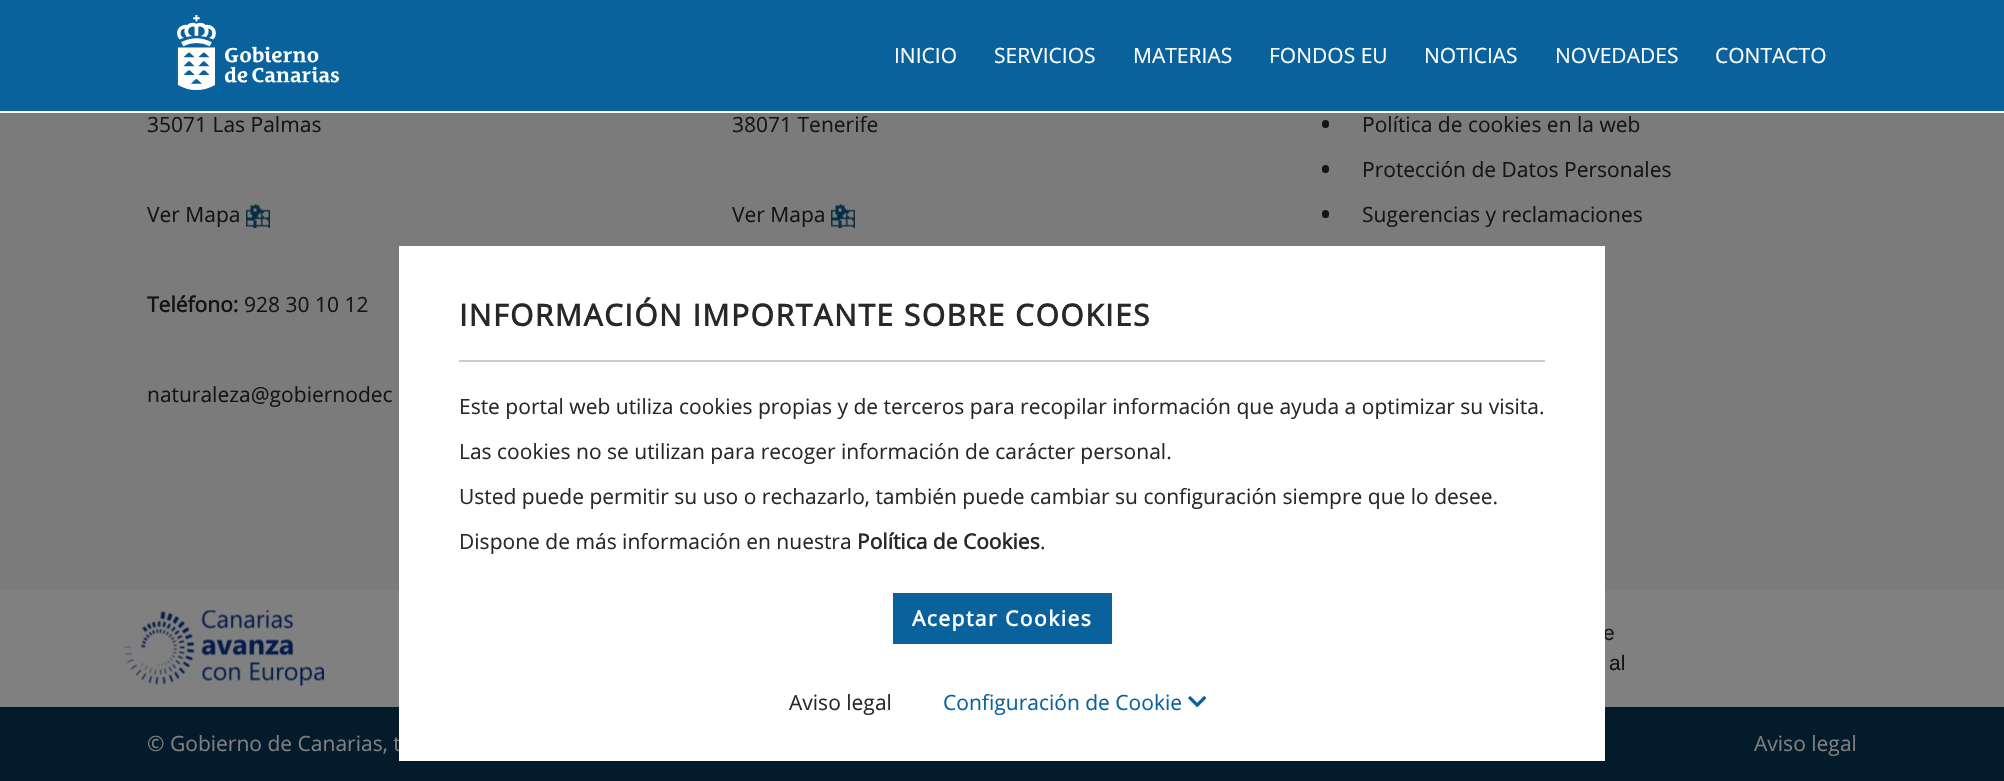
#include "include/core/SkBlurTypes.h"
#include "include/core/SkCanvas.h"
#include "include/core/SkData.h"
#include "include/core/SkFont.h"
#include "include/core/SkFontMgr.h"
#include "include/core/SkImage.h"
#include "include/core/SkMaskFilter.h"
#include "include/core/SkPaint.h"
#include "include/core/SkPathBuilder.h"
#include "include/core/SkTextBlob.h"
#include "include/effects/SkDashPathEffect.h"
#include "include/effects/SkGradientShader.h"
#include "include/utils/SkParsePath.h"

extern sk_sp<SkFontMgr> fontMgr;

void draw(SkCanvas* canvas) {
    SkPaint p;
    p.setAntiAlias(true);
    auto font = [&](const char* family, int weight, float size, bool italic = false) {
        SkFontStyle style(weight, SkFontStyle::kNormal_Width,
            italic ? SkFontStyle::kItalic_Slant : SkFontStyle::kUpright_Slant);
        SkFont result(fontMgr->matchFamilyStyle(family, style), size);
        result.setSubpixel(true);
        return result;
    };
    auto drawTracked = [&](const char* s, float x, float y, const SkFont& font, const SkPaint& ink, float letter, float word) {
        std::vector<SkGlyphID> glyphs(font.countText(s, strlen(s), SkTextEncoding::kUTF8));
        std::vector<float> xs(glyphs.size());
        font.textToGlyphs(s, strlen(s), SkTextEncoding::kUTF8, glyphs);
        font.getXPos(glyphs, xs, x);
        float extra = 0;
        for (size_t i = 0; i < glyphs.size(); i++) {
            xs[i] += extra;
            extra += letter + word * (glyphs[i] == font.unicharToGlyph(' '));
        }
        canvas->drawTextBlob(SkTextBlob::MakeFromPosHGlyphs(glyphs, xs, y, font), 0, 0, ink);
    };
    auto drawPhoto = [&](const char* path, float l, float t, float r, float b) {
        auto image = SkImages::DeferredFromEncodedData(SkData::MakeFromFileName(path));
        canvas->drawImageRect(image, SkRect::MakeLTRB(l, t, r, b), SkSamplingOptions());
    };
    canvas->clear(0xFF808080);
    p.setColor(0xFF0A629D);
    canvas->drawRect(SkRect::MakeLTRB(0, 0, 2004, 111), p);
    p.setColor(0xFFFFFFFF);
    canvas->drawRect(SkRect::MakeLTRB(0, 111, 2004, 113), p);
    drawPhoto("media/1.png", 177, 15, 339, 90);
    auto font1 = font("Open Sans", 400, 21);
    {
        const struct { const char* s; float x, y; } items[] = {
            {"INICIO", 894, 63},
            {"SERVICIOS", 994, 63},
            {"MATERIAS", 1133, 63},
            {"FONDOS EU", 1269, 63},
            {"NOTICIAS", 1424, 63},
            {"NOVEDADES", 1555, 63},
            {"CONTACTO", 1715, 63},
        };
        for (auto [s, x, y] : items) {
            canvas->drawString(s, x, y, font1, p);
        }
    }
    p.setColor(0xFF7B7B7C);
    canvas->drawRect(SkRect::MakeLTRB(0, 113, 2004, 590), p);
    p.setColor(0xFF141414);
    canvas->drawString("35071 Las Palmas", 147, 132, font1, p);
    canvas->drawString("Ver Mapa", 147, 222, font1, p);
    drawPhoto("media/2.png", 246, 204, 270, 228);
    auto font2 = font("Open Sans", 700, 21);
    canvas->drawString("Teléfono:", 147, 312, font2, p);
    {
        const struct { const char* s; float x, y; } items[] = {
            {"928 30 10 12", 244, 312},
            {"naturaleza@gobiernodec", 147, 402},
            {"38071 Tenerife", 732, 132},
            {"Ver Mapa", 732, 222},
        };
        for (auto [s, x, y] : items) {
            canvas->drawString(s, x, y, font1, p);
        }
    }
    drawPhoto("media/2.png", 831, 204, 855, 228);
    canvas->drawRoundRect(SkRect::MakeLTRB(1322, 120, 1329, 128), 3.5f, 3.5f, p);
    canvas->drawString("Política de cookies en la web", 1362, 132, font1, p);
    canvas->drawRoundRect(SkRect::MakeLTRB(1322, 165, 1329, 173), 3.5f, 3.5f, p);
    canvas->drawString("Protección de Datos Personales", 1362, 177, font1, p);
    canvas->drawRoundRect(SkRect::MakeLTRB(1322, 210, 1329, 218), 3.5f, 3.5f, p);
    canvas->drawString("Sugerencias y reclamaciones", 1362, 222, font1, p);
    drawPhoto("media/3.png", 124, 610, 324, 686);
    auto font3 = font("Liberation Sans", 400, 21);
    canvas->drawString("e", 1603, 640, font3, p);
    canvas->drawString("al", 1609, 670, font3, p);
    p.setColor(0xFF031B2B);
    canvas->drawRect(SkRect::MakeLTRB(0, 707, 2004, 781), p);
    p.setColor(0xFF808080);
    canvas->drawString("© Gobierno de Canarias, t", 147, 751, font1, p);
    canvas->drawString("Aviso legal", 1754, 751, font1, p);
    p.setColor(0xFFFFFFFF);
    canvas->drawRect(SkRect::MakeLTRB(399, 246, 1605, 761), p);
    auto font4 = font("Open Sans", 700, 30);
    p.setColor(0xFF282828);
    drawTracked("INFORMACIÓN IMPORTANTE SOBRE COOKIES", 459, 326, font4, p, 1.5f, 0);
    p.setColor(0xFFCCCCCC);
    canvas->drawRect(SkRect::MakeLTRB(459, 360, 1545, 362), p);
    p.setColor(0xFF282828);
    {
        const struct { const char* s; float x, y; } items[] = {
            {"Este portal web utiliza cookies propias y de terceros para recopilar información que ayuda a optimizar su visita.", 459, 414},
            {"Las cookies no se utilizan para recoger información de carácter personal.", 459, 459},
            {"Usted puede permitir su uso o rechazarlo, también puede cambiar su configuración siempre que lo desee.", 459, 504},
            {"Dispone de más información en nuestra", 459, 549},
        };
        for (auto [s, x, y] : items) {
            canvas->drawString(s, x, y, font1, p);
        }
    }
    canvas->drawString("Política de Cookies", 857, 549, font2, p);
    canvas->drawString(".", 1040, 549, font1, p);
    p.setColor(0xFF0A629D);
    canvas->drawRect(SkRect::MakeLTRB(893, 593, 1112, 644), p);
    p.setColor(0xFFFFFFFF);
    drawTracked("Aceptar Cookies", 912, 626, font2, p, 1.5f, 0);
    p.setColor(0xFF282828);
    canvas->drawString("Aviso legal", 789, 710, font1, p);
    p.setColor(0xFF0A629D);
    canvas->drawString("Configuración de Cookie", 943, 710, font1, p);
    drawPhoto("media/4.png", 1188, 696, 1207, 708);
}
